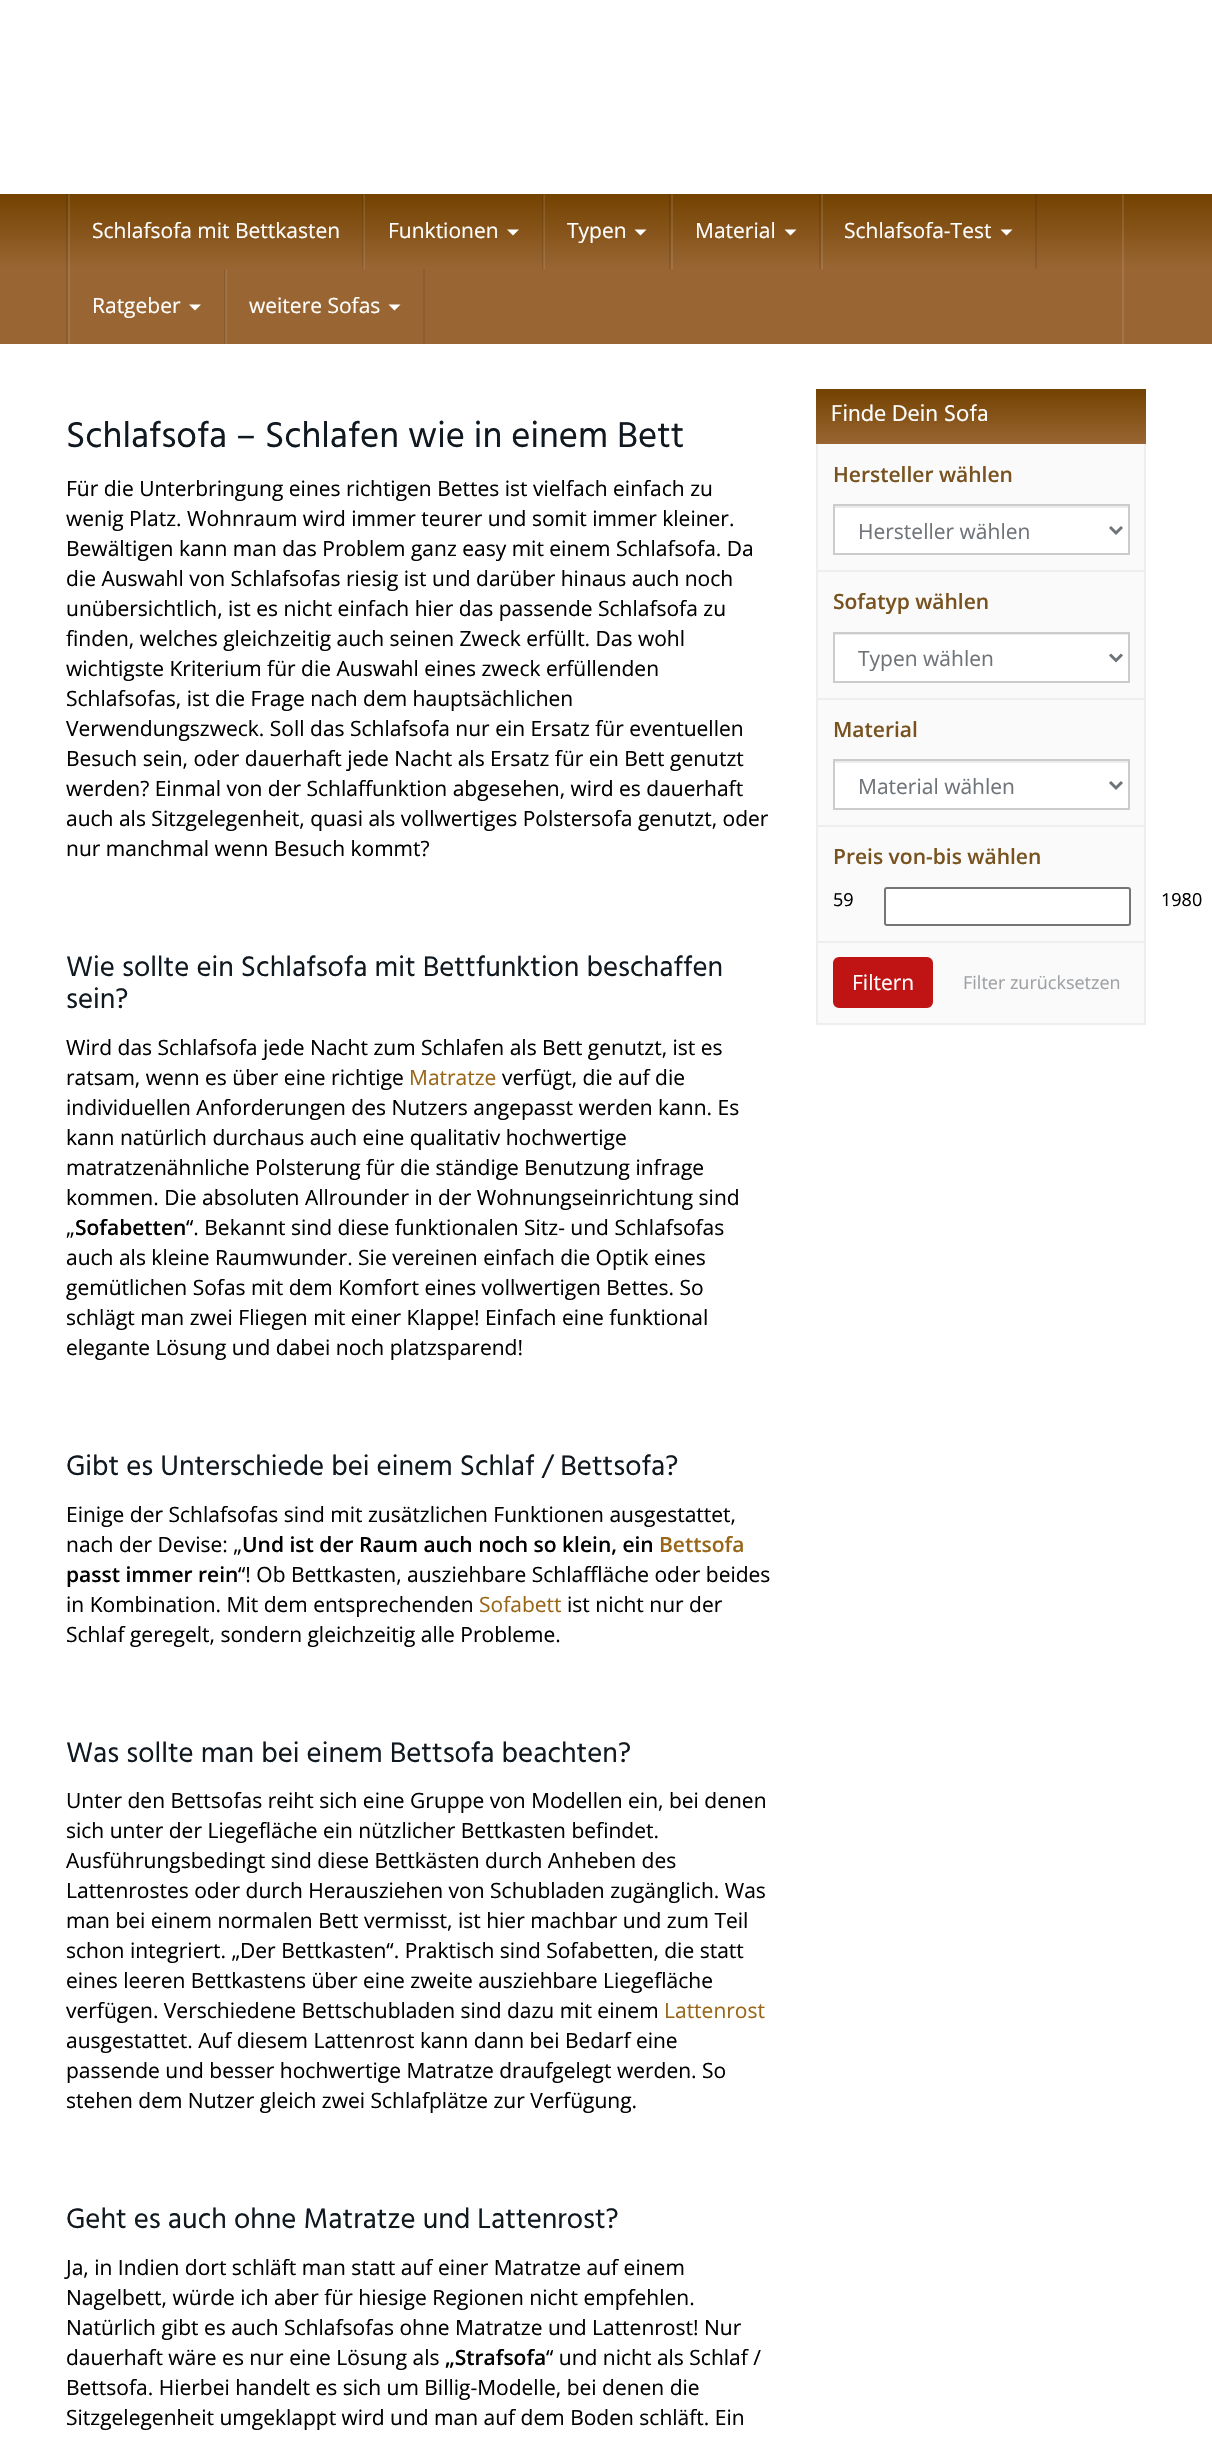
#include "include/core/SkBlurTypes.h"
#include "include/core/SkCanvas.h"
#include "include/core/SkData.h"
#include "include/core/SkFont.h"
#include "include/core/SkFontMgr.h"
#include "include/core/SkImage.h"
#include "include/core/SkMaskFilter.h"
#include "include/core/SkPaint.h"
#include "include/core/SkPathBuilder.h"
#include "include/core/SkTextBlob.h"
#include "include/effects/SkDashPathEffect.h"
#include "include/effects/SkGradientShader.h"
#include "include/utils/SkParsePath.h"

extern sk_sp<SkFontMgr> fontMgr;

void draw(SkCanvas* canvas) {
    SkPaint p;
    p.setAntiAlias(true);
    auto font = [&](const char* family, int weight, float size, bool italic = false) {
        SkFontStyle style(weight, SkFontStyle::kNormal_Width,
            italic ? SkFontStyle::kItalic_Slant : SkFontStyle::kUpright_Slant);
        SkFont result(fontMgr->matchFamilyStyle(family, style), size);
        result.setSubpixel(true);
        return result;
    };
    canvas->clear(0xFFFFFFFF);
    {
        const SkColor colors[] = {0xFF734200, 0xFF996633};
        const float stops[] = {0, 0.5f};
        const SkPoint ends[] = {{606, 193}, {606, 344}};
        p.setShader(SkGradientShader::MakeLinear(ends, colors, stops, 2, SkTileMode::kClamp));
        p.setAlpha(255);
    }
    canvas->drawRect(SkRect::MakeLTRB(0, 194, 1212, 344), p);
    {
        const SkColor colors[] = {0xFF81551A, 0xFFA37547};
        const float stops[] = {0, 0.5f};
        const SkPoint ends[] = {{606, 193}, {606, 344}};
        p.setShader(SkGradientShader::MakeLinear(ends, colors, stops, 2, SkTileMode::kClamp));
        p.setAlpha(255);
    }
    canvas->drawRect(SkRect::MakeLTRB(226, 269, 227, 344), p);
    canvas->drawRect(SkRect::MakeLTRB(821, 194, 823, 269), p);
    {
        const SkColor colors[] = {0xFF683B00, 0xFF8A5C2E};
        const float stops[] = {0, 0.5f};
        const SkPoint ends[] = {{606, 193}, {606, 344}};
        p.setShader(SkGradientShader::MakeLinear(ends, colors, stops, 2, SkTileMode::kClamp));
        p.setAlpha(255);
    }
    canvas->drawRect(SkRect::MakeLTRB(1035, 194, 1037, 269), p);
    {
        const SkColor colors[] = {0xFF81551A, 0xFFA37547};
        const float stops[] = {0, 0.5f};
        const SkPoint ends[] = {{606, 193}, {606, 344}};
        p.setShader(SkGradientShader::MakeLinear(ends, colors, stops, 2, SkTileMode::kClamp));
        p.setAlpha(255);
    }
    canvas->drawRect(SkRect::MakeLTRB(671, 194, 673, 269), p);
    {
        const SkColor colors[] = {0xFF683B00, 0xFF8A5C2E};
        const float stops[] = {0, 0.5f};
        const SkPoint ends[] = {{606, 193}, {606, 344}};
        p.setShader(SkGradientShader::MakeLinear(ends, colors, stops, 2, SkTileMode::kClamp));
        p.setAlpha(255);
    }
    canvas->drawRect(SkRect::MakeLTRB(819, 194, 821, 269), p);
    {
        const SkColor colors[] = {0xFF81551A, 0xFFA37547};
        const float stops[] = {0, 0.5f};
        const SkPoint ends[] = {{606, 193}, {606, 344}};
        p.setShader(SkGradientShader::MakeLinear(ends, colors, stops, 2, SkTileMode::kClamp));
        p.setAlpha(255);
    }
    canvas->drawRect(SkRect::MakeLTRB(544, 194, 545, 269), p);
    {
        const SkColor colors[] = {0xFF683B00, 0xFF8A5C2E};
        const float stops[] = {0, 0.5f};
        const SkPoint ends[] = {{606, 193}, {606, 344}};
        p.setShader(SkGradientShader::MakeLinear(ends, colors, stops, 2, SkTileMode::kClamp));
        p.setAlpha(255);
    }
    canvas->drawRect(SkRect::MakeLTRB(669, 194, 671, 269), p);
    {
        const SkColor colors[] = {0xFF81551A, 0xFFA37547};
        const float stops[] = {0, 0.5f};
        const SkPoint ends[] = {{606, 193}, {606, 344}};
        p.setShader(SkGradientShader::MakeLinear(ends, colors, stops, 2, SkTileMode::kClamp));
        p.setAlpha(255);
    }
    canvas->drawRect(SkRect::MakeLTRB(364, 194, 365, 269), p);
    {
        const SkColor colors[] = {0xFF683B00, 0xFF8A5C2E};
        const float stops[] = {0, 0.5f};
        const SkPoint ends[] = {{606, 193}, {606, 344}};
        p.setShader(SkGradientShader::MakeLinear(ends, colors, stops, 2, SkTileMode::kClamp));
        p.setAlpha(255);
    }
    canvas->drawRect(SkRect::MakeLTRB(542, 194, 543, 269), p);
    {
        const SkColor colors[] = {0xFF774F1A, 0xFF966C43};
        const float stops[] = {0, 0.5f};
        const SkPoint ends[] = {{606, 193}, {606, 344}};
        p.setShader(SkGradientShader::MakeLinear(ends, colors, stops, 2, SkTileMode::kClamp));
        p.setAlpha(255);
    }
    canvas->drawRect(SkRect::MakeLTRB(543, 194, 544, 269), p);
    {
        const SkColor colors[] = {0xFF81551A, 0xFFA37547};
        const float stops[] = {0, 0.5f};
        const SkPoint ends[] = {{606, 193}, {606, 344}};
        p.setShader(SkGradientShader::MakeLinear(ends, colors, stops, 2, SkTileMode::kClamp));
        p.setAlpha(255);
    }
    canvas->drawRect(SkRect::MakeLTRB(68, 194, 70, 269), p);
    {
        const SkColor colors[] = {0xFF683B00, 0xFF8A5C2E};
        const float stops[] = {0, 0.5f};
        const SkPoint ends[] = {{606, 193}, {606, 344}};
        p.setShader(SkGradientShader::MakeLinear(ends, colors, stops, 2, SkTileMode::kClamp));
        p.setAlpha(255);
    }
    canvas->drawRect(SkRect::MakeLTRB(362, 194, 363, 269), p);
    {
        const SkColor colors[] = {0xFF774F1A, 0xFF966C43};
        const float stops[] = {0, 0.5f};
        const SkPoint ends[] = {{606, 193}, {606, 344}};
        p.setShader(SkGradientShader::MakeLinear(ends, colors, stops, 2, SkTileMode::kClamp));
        p.setAlpha(255);
    }
    canvas->drawRect(SkRect::MakeLTRB(363, 194, 364, 269), p);
    {
        const SkColor colors[] = {0xFF683B00, 0xFF8A5C2E};
        const float stops[] = {0, 0.5f};
        const SkPoint ends[] = {{606, 193}, {606, 344}};
        p.setShader(SkGradientShader::MakeLinear(ends, colors, stops, 2, SkTileMode::kClamp));
        p.setAlpha(255);
    }
    canvas->drawRect(SkRect::MakeLTRB(66, 194, 68, 344), p);
    {
        const SkColor colors[] = {0xFF81551A, 0xFFA37547};
        const float stops[] = {0, 0.5f};
        const SkPoint ends[] = {{606, 193}, {606, 344}};
        p.setShader(SkGradientShader::MakeLinear(ends, colors, stops, 2, SkTileMode::kClamp));
        p.setAlpha(255);
    }
    canvas->drawRect(SkRect::MakeLTRB(1122, 194, 1124, 344), p);
    auto font1 = font("Open Sans", 400, 21);
    p.setShader(nullptr);
    p.setColor(0xFFFFFFFF);
    canvas->drawString("Schlafsofa mit Bettkasten", 92, 238, font1, p);
    canvas->drawString("Funktionen", 388, 238, font1, p);
    canvas->drawPath(SkPathBuilder().moveTo(507, 229.5f).lineTo(519, 229.5f).lineTo(513, 235.5f).close().detach(), p);
    canvas->drawString("Typen", 567, 238, font1, p);
    canvas->drawPath(SkPathBuilder().moveTo(634.5f, 229.5f).lineTo(646.5f, 229.5f).lineTo(640.5f, 235.5f).close().detach(), p);
    canvas->drawString("Material", 695, 238, font1, p);
    canvas->drawPath(SkPathBuilder().moveTo(784.5f, 229.5f).lineTo(796.5f, 229.5f).lineTo(790.5f, 235.5f).close().detach(), p);
    canvas->drawString("Schlafsofa-Test", 844, 238, font1, p);
    canvas->drawPath(SkPathBuilder().moveTo(1000.5f, 229.5f).lineTo(1012.5f, 229.5f).lineTo(1006.5f, 235.5f).close().detach(), p);
    {
        const struct { float l, t, r, b; SkColor color; } items[] = {
            {224, 269, 225, 344, 0xFF8A5C2E},
            {225, 269, 226, 344, 0xFF966C43},
            {68, 269, 70, 344, 0xFFA37547},
        };
        for (auto [l, t, r, b, color] : items) {
            p.setColor(color);
            canvas->drawRect(SkRect::MakeLTRB(l, t, r, b), p);
        }
    }
    p.setColor(0xFFFFFFFF);
    canvas->drawString("Ratgeber", 92, 313, font1, p);
    canvas->drawPath(SkPathBuilder().moveTo(189, 304.5f).lineTo(201, 304.5f).lineTo(195, 310.5f).close().detach(), p);
    p.setColor(0xFF8A5C2E);
    canvas->drawRect(SkRect::MakeLTRB(423, 269, 425, 344), p);
    p.setColor(0xFFFFFFFF);
    canvas->drawString("weitere Sofas", 249, 313, font1, p);
    canvas->drawPath(SkPathBuilder().moveTo(388.5f, 304.5f).lineTo(400.5f, 304.5f).lineTo(394.5f, 310.5f).close().detach(), p);
    auto font2 = font("Hind", 400, 36.75f);
    p.setColor(0xFF101820);
    canvas->drawString("Schlafsofa – Schlafen wie in einem Bett", 66, 447, font2, p);
    p.setColor(0xFF000000);
    {
        const struct { const char* s; float x, y; } items[] = {
            {"Für die Unterbringung eines richtigen Bettes ist vielfach einfach zu", 66, 496},
            {"wenig Platz. Wohnraum wird immer teurer und somit immer kleiner.", 66, 526},
            {"Bewältigen kann man das Problem ganz easy mit einem Schlafsofa. Da", 66, 556},
            {"die Auswahl von Schlafsofas riesig ist und darüber hinaus auch noch", 66, 586},
            {"unübersichtlich, ist es nicht einfach hier das passende Schlafsofa zu", 66, 616},
            {"finden, welches gleichzeitig auch seinen Zweck erfüllt. Das wohl", 66, 646},
            {"wichtigste Kriterium für die Auswahl eines zweck erfüllenden", 66, 676},
            {"Schlafsofas, ist die Frage nach dem hauptsächlichen", 66, 706},
            {"Verwendungszweck. Soll das Schlafsofa nur ein Ersatz für eventuellen", 66, 736},
            {"Besuch sein, oder dauerhaft jede Nacht als Ersatz für ein Bett genutzt", 66, 766},
            {"werden? Einmal von der Schlaffunktion abgesehen, wird es dauerhaft", 66, 796},
            {"auch als Sitzgelegenheit, quasi als vollwertiges Polstersofa genutzt, oder", 66, 826},
            {"nur manchmal wenn Besuch kommt?", 66, 856},
        };
        for (auto [s, x, y] : items) {
            canvas->drawString(s, x, y, font1, p);
        }
    }
    auto font3 = font("Hind", 400, 28.9f);
    p.setColor(0xFF101820);
    canvas->drawString("Wie sollte ein Schlafsofa mit Bettfunktion beschaffen", 66, 976, font3, p);
    canvas->drawString("sein?", 66, 1008, font3, p);
    p.setColor(0xFF000000);
    canvas->drawString("Wird das Schlafsofa jede Nacht zum Schlafen als Bett genutzt, ist es", 66, 1055, font1, p);
    canvas->drawString("ratsam, wenn es über eine richtige", 66, 1085, font1, p);
    p.setColor(0xFF996618);
    canvas->drawString("Matratze", 409, 1085, font1, p);
    p.setColor(0xFF000000);
    {
        const struct { const char* s; float x, y; } items[] = {
            {"verfügt, die auf die", 502, 1085},
            {"individuellen Anforderungen des Nutzers angepasst werden kann. Es", 66, 1115},
            {"kann natürlich durchaus auch eine qualitativ hochwertige", 66, 1145},
            {"matratzenähnliche Polsterung für die ständige Benutzung infrage", 66, 1175},
            {"kommen. Die absoluten Allrounder in der Wohnungseinrichtung sind", 66, 1205},
            {"„", 66, 1235},
        };
        for (auto [s, x, y] : items) {
            canvas->drawString(s, x, y, font1, p);
        }
    }
    auto font4 = font("Open Sans", 600, 21);
    canvas->drawString("Sofabetten", 75, 1235, font4, p);
    {
        const struct { const char* s; float x, y; } items[] = {
            {"“. Bekannt sind diese funktionalen Sitz- und Schlafsofas", 186, 1235},
            {"auch als kleine Raumwunder. Sie vereinen einfach die Optik eines", 66, 1265},
            {"gemütlichen Sofas mit dem Komfort eines vollwertigen Bettes. So", 66, 1295},
            {"schlägt man zwei Fliegen mit einer Klappe! Einfach eine funktional", 66, 1325},
            {"elegante Lösung und dabei noch platzsparend!", 66, 1355},
        };
        for (auto [s, x, y] : items) {
            canvas->drawString(s, x, y, font1, p);
        }
    }
    p.setColor(0xFF101820);
    canvas->drawString("Gibt es Unterschiede bei einem Schlaf / Bettsofa?", 66, 1475, font3, p);
    p.setColor(0xFF000000);
    canvas->drawString("Einige der Schlafsofas sind mit zusätzlichen Funktionen ausgestattet,", 66, 1522, font1, p);
    canvas->drawString("nach der Devise: „", 66, 1552, font1, p);
    canvas->drawString("Und ist der Raum auch noch so klein, ein", 242, 1552, font4, p);
    p.setColor(0xFF996618);
    canvas->drawString("Bettsofa", 659, 1552, font4, p);
    p.setColor(0xFF000000);
    canvas->drawString("passt immer rein", 66, 1582, font4, p);
    canvas->drawString("“! Ob Bettkasten, ausziehbare Schlaffläche oder beides", 238, 1582, font1, p);
    canvas->drawString("in Kombination. Mit dem entsprechenden", 66, 1612, font1, p);
    p.setColor(0xFF996618);
    canvas->drawString("Sofabett", 479, 1612, font1, p);
    p.setColor(0xFF000000);
    canvas->drawString("ist nicht nur der", 567, 1612, font1, p);
    canvas->drawString("Schlaf geregelt, sondern gleichzeitig alle Probleme.", 66, 1642, font1, p);
    p.setColor(0xFF101820);
    canvas->drawString("Was sollte man bei einem Bettsofa beachten?", 66, 1762, font3, p);
    p.setColor(0xFF000000);
    {
        const struct { const char* s; float x, y; } items[] = {
            {"Unter den Bettsofas reiht sich eine Gruppe von Modellen ein, bei denen", 66, 1808},
            {"sich unter der Liegefläche ein nützlicher Bettkasten befindet.", 66, 1838},
            {"Ausführungsbedingt sind diese Bettkästen durch Anheben des", 66, 1868},
            {"Lattenrostes oder durch Herausziehen von Schubladen zugänglich. Was", 66, 1898},
            {"man bei einem normalen Bett vermisst, ist hier machbar und zum Teil", 66, 1928},
            {"schon integriert. „Der Bettkasten“. Praktisch sind Sofabetten, die statt", 66, 1958},
            {"eines leeren Bettkastens über eine zweite ausziehbare Liegefläche", 66, 1988},
            {"verfügen. Verschiedene Bettschubladen sind dazu mit einem", 66, 2018},
        };
        for (auto [s, x, y] : items) {
            canvas->drawString(s, x, y, font1, p);
        }
    }
    p.setColor(0xFF996618);
    canvas->drawString("Lattenrost", 664, 2018, font1, p);
    p.setColor(0xFF000000);
    {
        const struct { const char* s; float x, y; } items[] = {
            {"ausgestattet. Auf diesem Lattenrost kann dann bei Bedarf eine", 66, 2048},
            {"passende und besser hochwertige Matratze draufgelegt werden. So", 66, 2078},
            {"stehen dem Nutzer gleich zwei Schlafplätze zur Verfügung.", 66, 2108},
        };
        for (auto [s, x, y] : items) {
            canvas->drawString(s, x, y, font1, p);
        }
    }
    p.setColor(0xFF101820);
    canvas->drawString("Geht es auch ohne Matratze und Lattenrost?", 66, 2228, font3, p);
    p.setColor(0xFF000000);
    {
        const struct { const char* s; float x, y; } items[] = {
            {"Ja, in Indien dort schläft man statt auf einer Matratze auf einem", 66, 2275},
            {"Nagelbett, würde ich aber für hiesige Regionen nicht empfehlen.", 66, 2305},
            {"Natürlich gibt es auch Schlafsofas ohne Matratze und Lattenrost! Nur", 66, 2335},
            {"dauerhaft wäre es nur eine Lösung als", 66, 2365},
        };
        for (auto [s, x, y] : items) {
            canvas->drawString(s, x, y, font1, p);
        }
    }
    canvas->drawString("„Strafsofa", 445, 2365, font4, p);
    {
        const struct { const char* s; float x, y; } items[] = {
            {"“ und nicht als Schlaf /", 546, 2365},
            {"Bettsofa. Hierbei handelt es sich um Billig-Modelle, bei denen die", 66, 2395},
            {"Sitzgelegenheit umgeklappt wird und man auf dem Boden schläft. Ein", 66, 2425},
        };
        for (auto [s, x, y] : items) {
            canvas->drawString(s, x, y, font1, p);
        }
    }
    p.setColor(0xFFFAFAFA);
    canvas->drawRect(SkRect::MakeLTRB(818, 444, 1144, 1023), p);
    p.setStyle(SkPaint::kStroke_Style);
    p.setStrokeWidth(2);
    p.setColor(0xFFEEEEEE);
    canvas->drawRect(SkRect::MakeLTRB(817, 390, 1145, 1024), p);
    p.setStyle(SkPaint::kFill_Style);
    {
        const SkColor colors[] = {0xFF734200, 0xFF996633};
        const float stops[] = {0, 1};
        const SkPoint ends[] = {{981, 389}, {981, 444}};
        p.setShader(SkGradientShader::MakeLinear(ends, colors, stops, 2, SkTileMode::kClamp));
        p.setAlpha(255);
    }
    canvas->drawRect(SkRect::MakeLTRB(816, 389, 1146, 444), p);
    auto font5 = font("Hind", 400, 23.5f);
    p.setShader(nullptr);
    p.setColor(0xFFFFFFFF);
    canvas->drawString("Finde Dein Sofa", 831, 421, font5, p);
    p.setColor(0xFF785320);
    canvas->drawString("Hersteller wählen", 833, 482, font4, p);
    p.setColor(0xFFFFFFFF);
    canvas->drawRect(SkRect::MakeLTRB(835, 508, 1128, 553), p);
    p.setColor(0xFFECECEC);
    canvas->drawRect(SkRect::MakeLTRB(834, 506, 1128, 508), p);
    p.setStyle(SkPaint::kStroke_Style);
    p.setColor(0xFFCCCCCC);
    canvas->drawRect(SkRect::MakeLTRB(834, 505, 1129, 554), p);
    p.setStrokeWidth(3);
    p.setColor(0xFF6F7479);
    canvas->drawPath(SkPathBuilder().moveTo(1110, 527).lineTo(1116, 533).lineTo(1122, 527).detach(), p);
    p.setStyle(SkPaint::kFill_Style);
    canvas->drawString("Hersteller wählen", 858, 539, font1, p);
    p.setColor(0xFFEEEEEE);
    canvas->drawRect(SkRect::MakeLTRB(818, 570, 1145, 572), p);
    p.setColor(0xFF785320);
    canvas->drawString("Sofatyp wählen", 833, 609, font4, p);
    p.setColor(0xFFFFFFFF);
    canvas->drawRect(SkRect::MakeLTRB(835, 635, 1128, 681), p);
    p.setColor(0xFFECECEC);
    canvas->drawRect(SkRect::MakeLTRB(834, 634, 1128, 635), p);
    p.setStyle(SkPaint::kStroke_Style);
    p.setStrokeWidth(2);
    p.setColor(0xFFCCCCCC);
    canvas->drawRect(SkRect::MakeLTRB(834, 633, 1129, 682), p);
    p.setStrokeWidth(3);
    p.setColor(0xFF6F7479);
    canvas->drawPath(SkPathBuilder().moveTo(1110, 654.5f).lineTo(1116, 660.5f).lineTo(1122, 654.5f).detach(), p);
    p.setStyle(SkPaint::kFill_Style);
    canvas->drawString("Typen wählen", 858, 666, font1, p);
    p.setColor(0xFFEEEEEE);
    canvas->drawRect(SkRect::MakeLTRB(818, 698, 1145, 700), p);
    p.setColor(0xFF785320);
    canvas->drawString("Material", 833, 737, font4, p);
    p.setColor(0xFFFFFFFF);
    canvas->drawRect(SkRect::MakeLTRB(835, 763, 1128, 808), p);
    p.setColor(0xFFECECEC);
    canvas->drawRect(SkRect::MakeLTRB(834, 761, 1128, 763), p);
    p.setStyle(SkPaint::kStroke_Style);
    p.setStrokeWidth(2);
    p.setColor(0xFFCCCCCC);
    canvas->drawRect(SkRect::MakeLTRB(834, 760, 1129, 809), p);
    p.setStrokeWidth(3);
    p.setColor(0xFF6F7479);
    canvas->drawPath(SkPathBuilder().moveTo(1110, 782).lineTo(1116, 788).lineTo(1122, 782).detach(), p);
    p.setStyle(SkPaint::kFill_Style);
    canvas->drawString("Material wählen", 858, 794, font1, p);
    p.setColor(0xFFEEEEEE);
    canvas->drawRect(SkRect::MakeLTRB(818, 825, 1145, 827), p);
    p.setColor(0xFF785320);
    canvas->drawString("Preis von-bis wählen", 833, 864, font4, p);
    auto font6 = font("Open Sans", 400, 18);
    p.setColor(0xFF000000);
    canvas->drawString("59", 833, 906, font6, p);
    p.setColor(0xFFFFFFFF);
    canvas->drawRoundRect(SkRect::MakeLTRB(885, 888, 1130, 925), 2, 2, p);
    p.setStyle(SkPaint::kStroke_Style);
    p.setStrokeWidth(2);
    p.setColor(0xFF767676);
    canvas->drawRoundRect(SkRect::MakeLTRB(885, 888, 1130, 925), 2, 2, p);
    p.setStyle(SkPaint::kFill_Style);
    p.setColor(0xFF000000);
    canvas->drawString("1980", 1161, 906, font6, p);
    p.setColor(0xFFEEEEEE);
    canvas->drawRect(SkRect::MakeLTRB(818, 941, 1145, 943), p);
    p.setColor(0xFFC01313);
    canvas->drawRoundRect(SkRect::MakeLTRB(834, 958, 932, 1007), 5, 5, p);
    p.setStyle(SkPaint::kStroke_Style);
    canvas->drawRoundRect(SkRect::MakeLTRB(834, 958, 932, 1007), 5, 5, p);
    p.setStyle(SkPaint::kFill_Style);
    p.setColor(0xFFFFFFFF);
    canvas->drawString("Filtern", 852, 990, font1, p);
    p.setColor(0xFF9FA2A5);
    canvas->drawString("Filter zurücksetzen", 963, 989, font6, p);
}
